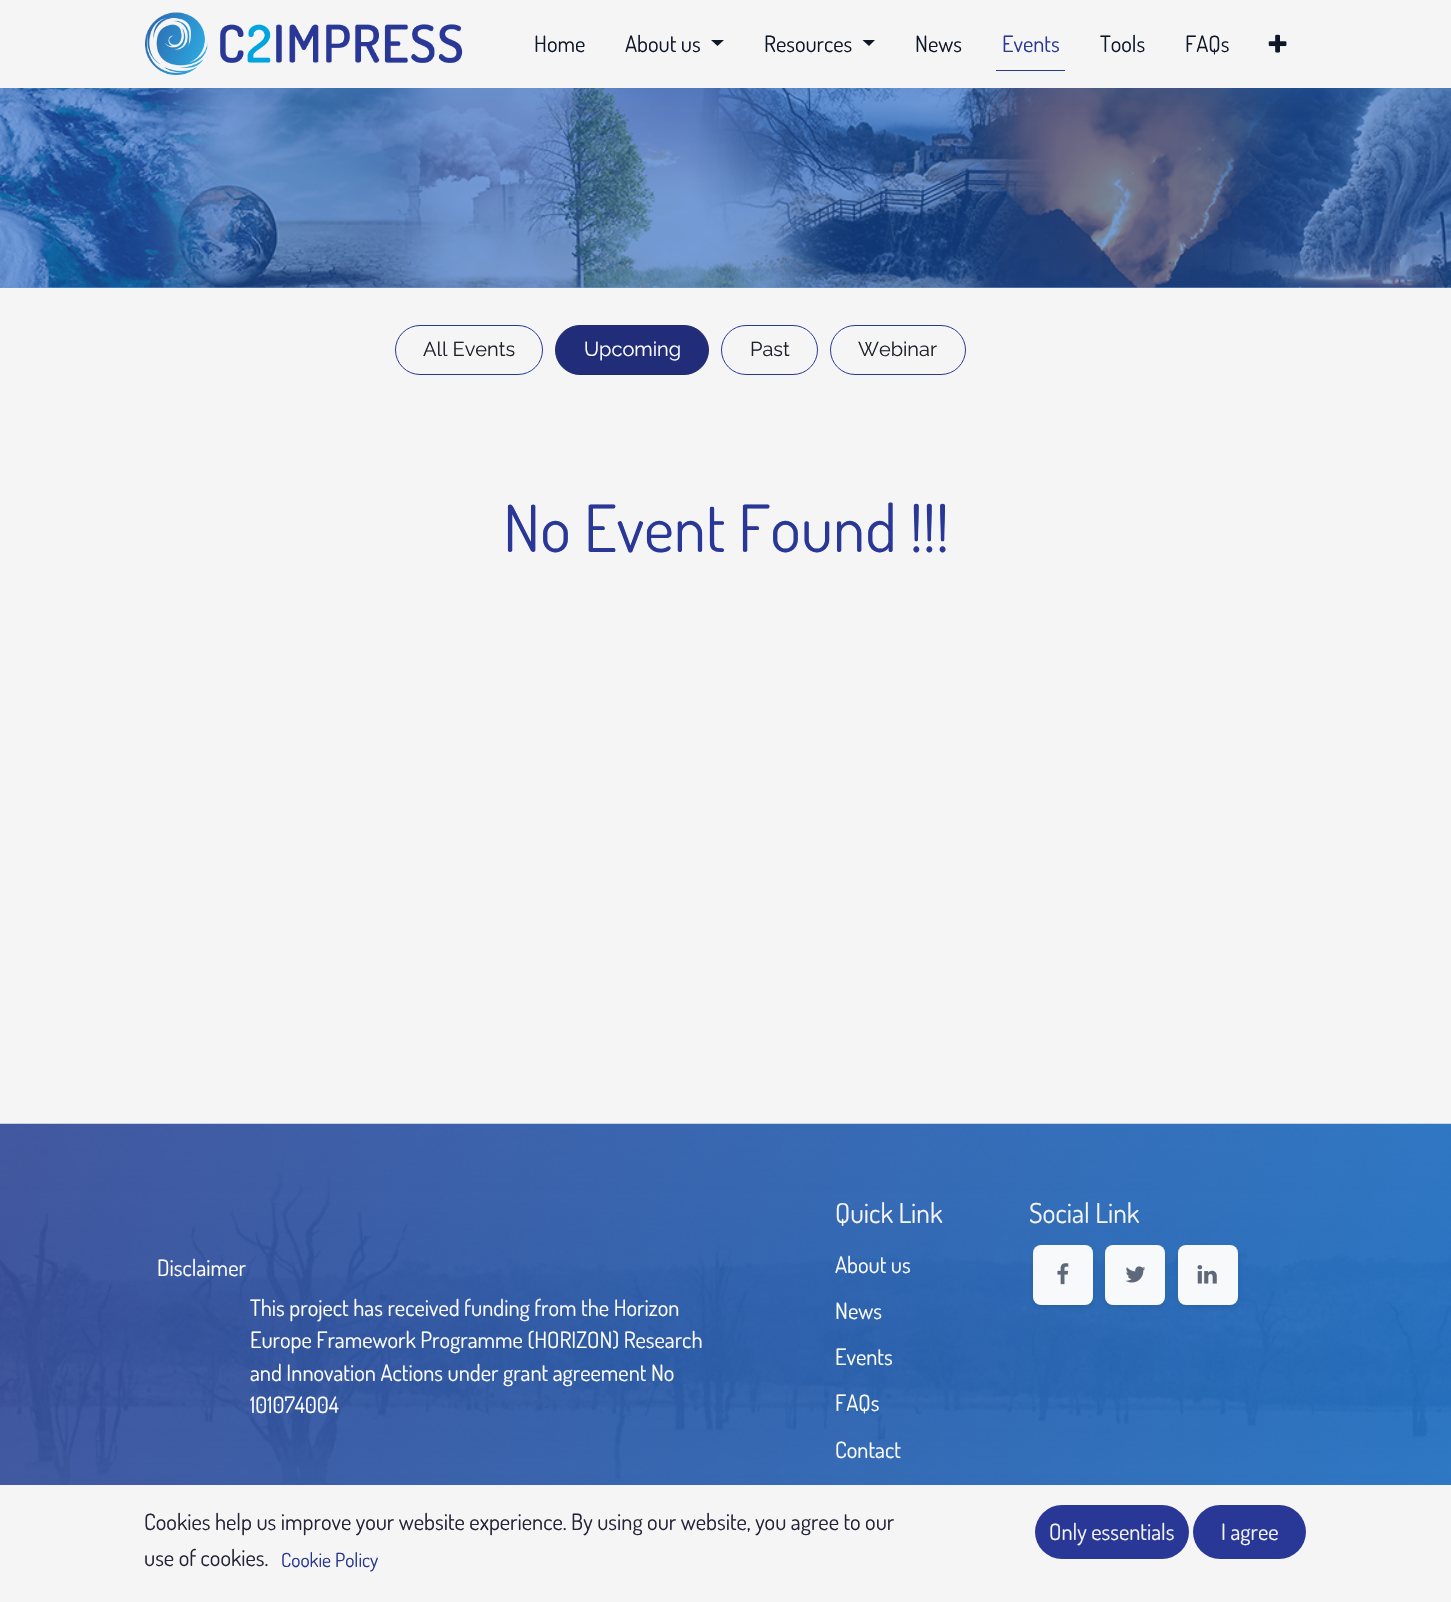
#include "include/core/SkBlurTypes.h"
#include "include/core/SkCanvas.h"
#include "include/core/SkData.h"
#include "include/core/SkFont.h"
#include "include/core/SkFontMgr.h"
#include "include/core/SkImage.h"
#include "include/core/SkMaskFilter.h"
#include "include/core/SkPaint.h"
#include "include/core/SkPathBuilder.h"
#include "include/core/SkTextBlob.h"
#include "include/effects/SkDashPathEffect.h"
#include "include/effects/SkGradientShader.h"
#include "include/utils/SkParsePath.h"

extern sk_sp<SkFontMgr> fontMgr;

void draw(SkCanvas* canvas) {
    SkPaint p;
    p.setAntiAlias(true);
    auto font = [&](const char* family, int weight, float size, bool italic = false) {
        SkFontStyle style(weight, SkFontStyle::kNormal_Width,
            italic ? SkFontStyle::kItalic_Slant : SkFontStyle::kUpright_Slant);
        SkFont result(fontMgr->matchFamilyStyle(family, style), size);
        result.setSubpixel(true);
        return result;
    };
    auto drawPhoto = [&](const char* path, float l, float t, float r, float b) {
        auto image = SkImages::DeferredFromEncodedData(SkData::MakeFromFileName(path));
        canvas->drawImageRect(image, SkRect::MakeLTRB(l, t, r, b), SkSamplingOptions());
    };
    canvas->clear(0xFFF5F5F5);
    p.setColor(0xFF7199D5);
    canvas->drawRect(SkRect::MakeLTRB(0, 287, 1451, 288), p);
    drawPhoto("media/3.png", 0, 88, 1451, 288);
    p.setColor(0x29367CC1);
    p.setMaskFilter(SkMaskFilter::MakeBlur(kNormal_SkBlurStyle, 7.5f));
    canvas->drawRect(SkRect::MakeLTRB(0, 3, 1451, 90), p);
    p.setMaskFilter(nullptr);
    p.setColor(0xFFF5F5F5);
    canvas->drawRect(SkRect::MakeLTRB(0, 0, 1451, 88), p);
    drawPhoto("media/1.png", 145, 12, 463, 75);
    auto font1 = font("Dosis", 400, 22.5f);
    p.setColor(0xFF0D1728);
    canvas->drawString("Home", 534, 52, font1, p);
    canvas->drawString("About us", 625, 52, font1, p);
    canvas->drawPath(SkPathBuilder().moveTo(711, 40).lineTo(724, 40).lineTo(717.5f, 46).close().detach(), p);
    canvas->drawString("Resources", 764, 52, font1, p);
    canvas->drawPath(SkPathBuilder().moveTo(862.5f, 40).lineTo(875, 40).lineTo(869, 46).close().detach(), p);
    canvas->drawString("News", 915, 52, font1, p);
    p.setColor(0xFF293896);
    canvas->drawString("Events", 1002, 52, font1, p);
    canvas->drawRect(SkRect::MakeLTRB(996, 70, 1065, 71), p);
    p.setColor(0xFF0D1728);
    canvas->drawString("Tools", 1100, 52, font1, p);
    canvas->drawString("FAQs", 1185, 52, font1, p);
    drawPhoto("media/2.png", 1268, 34, 1287, 53);
    p.setStyle(SkPaint::kStroke_Style);
    p.setStrokeWidth(1);
    p.setColor(0xFF293896);
    canvas->drawRoundRect(SkRect::MakeLTRB(395.5f, 325.5f, 542.5f, 374.5f), 24.5f, 24.5f, p);
    auto font2 = font("Raleway", 400, 20);
    p.setStyle(SkPaint::kFill_Style);
    p.setColor(0xFF1D2127);
    canvas->drawString("All Events", 423, 356, font2, p);
    p.setColor(0xFF212D78);
    canvas->drawRoundRect(SkRect::MakeLTRB(555.5f, 325.5f, 708.5f, 374.5f), 24.5f, 24.5f, p);
    p.setStyle(SkPaint::kStroke_Style);
    p.setColor(0xFF1F2A71);
    canvas->drawRoundRect(SkRect::MakeLTRB(555.5f, 325.5f, 708.5f, 374.5f), 24.5f, 24.5f, p);
    p.setStyle(SkPaint::kFill_Style);
    p.setColor(0xFFFFFFFF);
    canvas->drawString("Upcoming", 584, 356, font2, p);
    p.setStyle(SkPaint::kStroke_Style);
    p.setColor(0xFF293896);
    canvas->drawRoundRect(SkRect::MakeLTRB(721.5f, 325.5f, 817.5f, 374.5f), 24.5f, 24.5f, p);
    p.setStyle(SkPaint::kFill_Style);
    p.setColor(0xFF1D2127);
    canvas->drawString("Past", 750, 356, font2, p);
    p.setStyle(SkPaint::kStroke_Style);
    p.setColor(0xFF293896);
    canvas->drawRoundRect(SkRect::MakeLTRB(830.5f, 325.5f, 965.5f, 374.5f), 24.5f, 24.5f, p);
    p.setStyle(SkPaint::kFill_Style);
    p.setColor(0xFF1D2127);
    canvas->drawString("Webinar", 858, 356, font2, p);
    auto font3 = font("Dosis", 400, 65);
    p.setColor(0xFF293896);
    canvas->drawString("No Event Found !!!", 503, 552, font3, p);
    drawPhoto("media/4.png", 0, 1123, 1451, 1485);
    auto font4 = font("Dosis", 400, 27.5f);
    p.setColor(0xFFF5F5F5);
    canvas->drawString("Quick Link", 835, 1223, font4, p);
    p.setColor(0xFFFFFFFF);
    {
        const struct { const char* s; float x, y; } items[] = {
            {"About us", 835, 1273},
            {"News", 835, 1319},
            {"Events", 835, 1365},
            {"FAQs", 835, 1411},
            {"Contact", 835, 1458},
        };
        for (auto [s, x, y] : items) {
            canvas->drawString(s, x, y, font1, p);
        }
    }
    p.setColor(0xFFF5F5F5);
    canvas->drawString("Social Link", 1029, 1223, font4, p);
    p.setColor(0x12000000);
    p.setMaskFilter(SkMaskFilter::MakeBlur(kNormal_SkBlurStyle, 2.5f));
    canvas->drawRoundRect(SkRect::MakeLTRB(1033, 1248, 1093, 1308), 8, 8, p);
    p.setMaskFilter(nullptr);
    p.setColor(0xFFF8F9FA);
    canvas->drawRoundRect(SkRect::MakeLTRB(1033, 1245, 1093, 1305), 8, 8, p);
    drawPhoto("media/5.png", 1057, 1263, 1069, 1285);
    p.setColor(0x12000000);
    p.setMaskFilter(SkMaskFilter::MakeBlur(kNormal_SkBlurStyle, 2.5f));
    canvas->drawRoundRect(SkRect::MakeLTRB(1105, 1248, 1165, 1308), 8, 8, p);
    p.setMaskFilter(nullptr);
    p.setColor(0xFFF8F9FA);
    canvas->drawRoundRect(SkRect::MakeLTRB(1105, 1245, 1165, 1305), 8, 8, p);
    drawPhoto("media/6.png", 1125, 1266, 1146, 1283);
    p.setColor(0x12000000);
    p.setMaskFilter(SkMaskFilter::MakeBlur(kNormal_SkBlurStyle, 2.5f));
    canvas->drawRoundRect(SkRect::MakeLTRB(1178, 1248, 1238, 1308), 8, 8, p);
    p.setMaskFilter(nullptr);
    p.setColor(0xFFF8F9FA);
    canvas->drawRoundRect(SkRect::MakeLTRB(1178, 1245, 1238, 1305), 8, 8, p);
    drawPhoto("media/7.png", 1197, 1265, 1217, 1284);
    p.setColor(0xFFFFFFFF);
    {
        const struct { const char* s; float x, y; } items[] = {
            {"Disclaimer", 157, 1276},
            {"This project has received funding from the Horizon", 250, 1316},
            {"Europe Framework Programme (HORIZON) Research", 250, 1348},
            {"and Innovation Actions under grant agreement No", 250, 1381},
            {"101074004", 250, 1413},
        };
        for (auto [s, x, y] : items) {
            canvas->drawString(s, x, y, font1, p);
        }
    }
    p.setColor(0xFF242337);
    canvas->drawString("Cookies help us improve your website experience. By using our website, you agree to our", 144, 1530, font1, p);
    canvas->drawString("use of cookies.", 144, 1566, font1, p);
    auto font5 = font("Dosis", 400, 19.5f);
    p.setColor(0xFF27358E);
    canvas->drawString("Cookie Policy", 281, 1567, font5, p);
    p.setColor(0xFF293896);
    canvas->drawRoundRect(SkRect::MakeLTRB(1035, 1505, 1189, 1559), 27, 27, p);
    p.setColor(0xFFF5F5F5);
    canvas->drawString("Only essentials", 1049, 1540, font1, p);
    p.setColor(0xFF293896);
    canvas->drawRoundRect(SkRect::MakeLTRB(1193, 1505, 1306, 1559), 27, 27, p);
    p.setColor(0xFFF5F5F5);
    canvas->drawString("I agree", 1221, 1540, font1, p);
}
